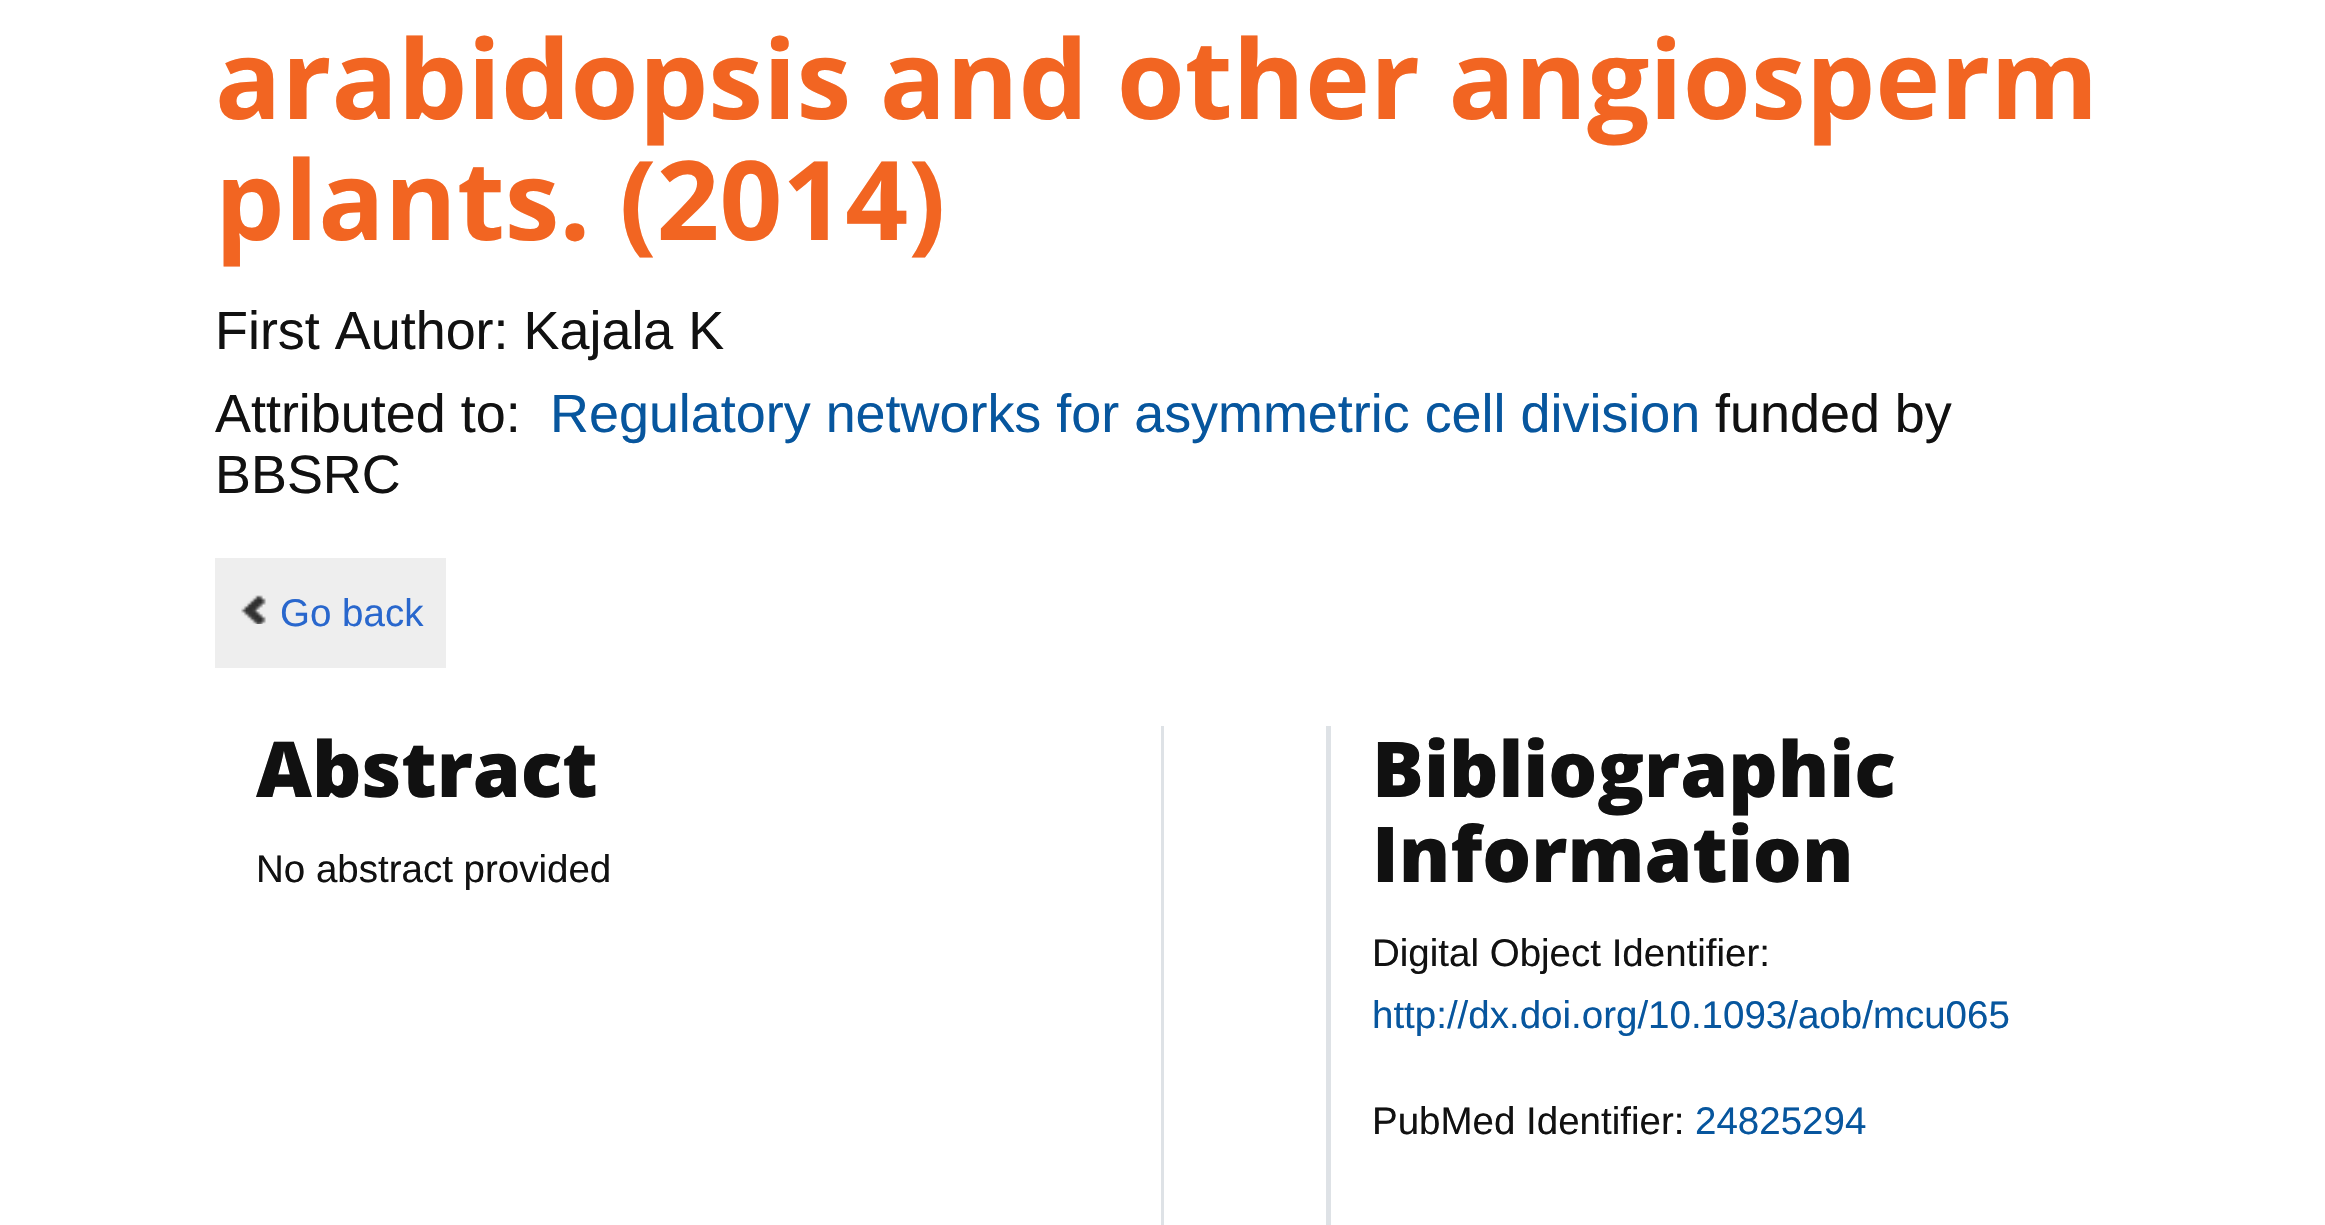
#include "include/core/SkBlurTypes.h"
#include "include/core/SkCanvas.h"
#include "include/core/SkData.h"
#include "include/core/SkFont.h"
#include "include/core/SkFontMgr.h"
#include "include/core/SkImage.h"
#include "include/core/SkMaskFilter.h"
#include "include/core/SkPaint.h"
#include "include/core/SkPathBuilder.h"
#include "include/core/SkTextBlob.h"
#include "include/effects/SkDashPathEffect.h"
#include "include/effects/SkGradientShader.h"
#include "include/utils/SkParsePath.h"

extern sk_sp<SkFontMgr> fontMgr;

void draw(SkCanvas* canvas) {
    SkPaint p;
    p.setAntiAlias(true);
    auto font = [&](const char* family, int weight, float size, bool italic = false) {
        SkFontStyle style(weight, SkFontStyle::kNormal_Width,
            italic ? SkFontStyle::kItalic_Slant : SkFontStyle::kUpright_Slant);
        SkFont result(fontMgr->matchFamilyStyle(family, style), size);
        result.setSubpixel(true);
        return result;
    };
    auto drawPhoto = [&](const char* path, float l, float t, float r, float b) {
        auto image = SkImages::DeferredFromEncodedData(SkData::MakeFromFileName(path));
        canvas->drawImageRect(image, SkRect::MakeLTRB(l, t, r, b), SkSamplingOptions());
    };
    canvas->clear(0xFFFFFFFF);
    auto font1 = font("Open Sans", 700, 110);
    p.setColor(0xFFF26522);
    canvas->drawString("arabidopsis and other angiosperm", 215, 119, font1, p);
    canvas->drawString("plants. (2014)", 215, 240, font1, p);
    auto font2 = font("Liberation Sans", 400, 53.9f);
    p.setColor(0xFF111111);
    canvas->drawString("First Author: Kajala K", 215, 349, font2, p);
    canvas->drawString("Attributed to:", 215, 432, font2, p);
    p.setColor(0xFF07569E);
    canvas->drawString("Regulatory networks for asymmetric cell division", 550, 432, font2, p);
    p.setColor(0xFF111111);
    canvas->drawString("funded by", 1715, 432, font2, p);
    canvas->drawString("BBSRC", 215, 493, font2, p);
    p.setColor(0xFFEEEEEE);
    canvas->drawRect(SkRect::MakeLTRB(215, 558, 446, 668), p);
    drawPhoto("media/1.png", 241, 595, 266, 624);
    auto font3 = font("Liberation Sans", 400, 38.5f);
    p.setColor(0xFF2967CD);
    canvas->drawString("Go back", 280, 626, font3, p);
    p.setColor(0xFFDEE2E6);
    canvas->drawRect(SkRect::MakeLTRB(1161, 726, 1164, 1225), p);
    auto font4 = font("Open Sans", 800, 77);
    p.setColor(0xFF111111);
    canvas->drawString("Abstract", 256, 797, font4, p);
    canvas->drawString("No abstract provided", 256, 882, font3, p);
    p.setColor(0xFFDEE2E6);
    canvas->drawRect(SkRect::MakeLTRB(1326, 726, 1331, 1225), p);
    p.setColor(0xFF111111);
    canvas->drawString("Bibliographic", 1372, 797, font4, p);
    canvas->drawString("Information", 1372, 882, font4, p);
    canvas->drawString("Digital Object Identifier:", 1372, 966, font3, p);
    p.setColor(0xFF07569E);
    canvas->drawString("http://dx.doi.org/10.1093/aob/mcu065", 1372, 1028, font3, p);
    p.setColor(0xFF111111);
    canvas->drawString("PubMed Identifier:", 1372, 1134, font3, p);
    p.setColor(0xFF07569E);
    canvas->drawString("24825294", 1695, 1134, font3, p);
}
